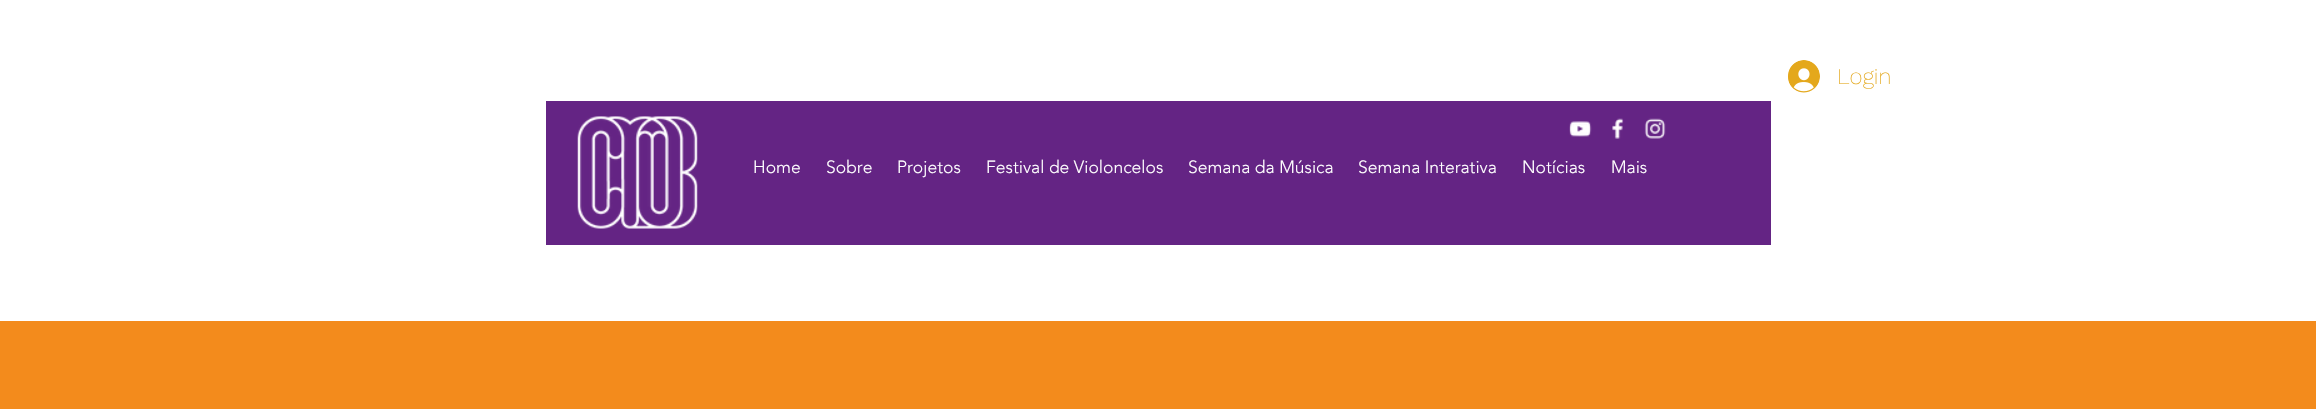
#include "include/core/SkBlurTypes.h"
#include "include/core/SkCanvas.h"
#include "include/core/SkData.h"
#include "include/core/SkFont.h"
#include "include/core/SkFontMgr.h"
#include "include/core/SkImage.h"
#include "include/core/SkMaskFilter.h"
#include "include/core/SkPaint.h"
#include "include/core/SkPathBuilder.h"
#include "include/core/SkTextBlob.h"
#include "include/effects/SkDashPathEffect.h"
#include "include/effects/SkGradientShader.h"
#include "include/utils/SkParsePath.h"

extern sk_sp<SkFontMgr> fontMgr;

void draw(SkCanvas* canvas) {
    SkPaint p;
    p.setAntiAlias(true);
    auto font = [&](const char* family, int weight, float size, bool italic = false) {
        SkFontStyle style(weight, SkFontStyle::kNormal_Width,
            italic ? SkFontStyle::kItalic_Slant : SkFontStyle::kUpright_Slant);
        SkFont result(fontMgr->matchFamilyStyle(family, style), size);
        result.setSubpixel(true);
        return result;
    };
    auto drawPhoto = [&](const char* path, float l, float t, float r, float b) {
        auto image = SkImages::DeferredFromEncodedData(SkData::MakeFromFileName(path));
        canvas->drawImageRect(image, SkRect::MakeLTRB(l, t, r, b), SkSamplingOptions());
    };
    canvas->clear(0xFFFFFFFF);
    drawPhoto("media/1.png", 1788, 60, 1820, 93);
    auto font1 = font("Work Sans", 200, 22.5f);
    p.setColor(0xFFE4A81C);
    canvas->drawString("Login", 1837, 84, font1, p);
    p.setColor(0xFF642484);
    canvas->drawRect(SkRect::MakeLTRB(546, 101, 1771, 245), p);
    drawPhoto("media/2.png", 577, 116, 698, 229);
    drawPhoto("media/3.png", 1569, 121, 1592, 137);
    drawPhoto("media/4.png", 1612, 118, 1624, 139);
    drawPhoto("media/5.png", 1644, 118, 1666, 139);
    auto font2 = font("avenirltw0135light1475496", 300, 17.5f);
    p.setColor(0xFFFFFFFF);
    {
        const struct { const char* s; float x, y; } items[] = {
            {"Home", 753, 173},
            {"Sobre", 826, 173},
            {"Projetos", 897, 173},
            {"Festival de Violoncelos", 986, 173},
            {"Semana da Música", 1188, 173},
            {"Semana Interativa", 1358, 173},
            {"Notícias", 1522, 173},
            {"Mais", 1611, 173},
        };
        for (auto [s, x, y] : items) {
            canvas->drawString(s, x, y, font2, p);
        }
    }
    p.setColor(0xFFF38B1C);
    canvas->drawRect(SkRect::MakeLTRB(0, 321, 2316, 409), p);
}
